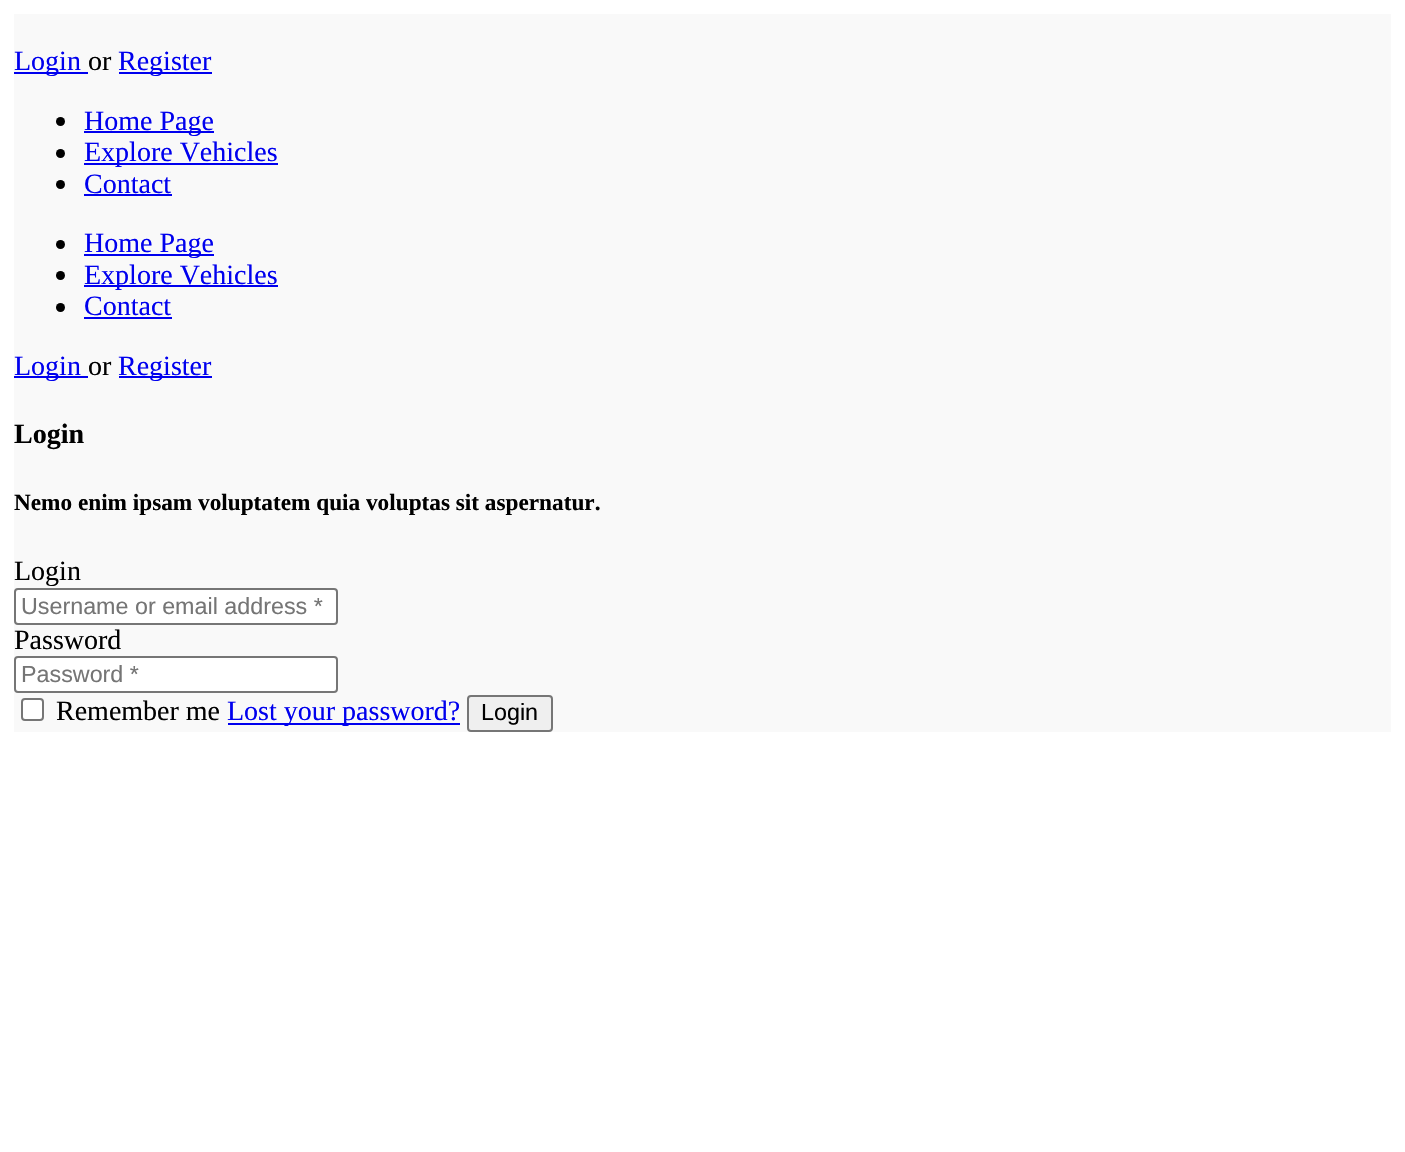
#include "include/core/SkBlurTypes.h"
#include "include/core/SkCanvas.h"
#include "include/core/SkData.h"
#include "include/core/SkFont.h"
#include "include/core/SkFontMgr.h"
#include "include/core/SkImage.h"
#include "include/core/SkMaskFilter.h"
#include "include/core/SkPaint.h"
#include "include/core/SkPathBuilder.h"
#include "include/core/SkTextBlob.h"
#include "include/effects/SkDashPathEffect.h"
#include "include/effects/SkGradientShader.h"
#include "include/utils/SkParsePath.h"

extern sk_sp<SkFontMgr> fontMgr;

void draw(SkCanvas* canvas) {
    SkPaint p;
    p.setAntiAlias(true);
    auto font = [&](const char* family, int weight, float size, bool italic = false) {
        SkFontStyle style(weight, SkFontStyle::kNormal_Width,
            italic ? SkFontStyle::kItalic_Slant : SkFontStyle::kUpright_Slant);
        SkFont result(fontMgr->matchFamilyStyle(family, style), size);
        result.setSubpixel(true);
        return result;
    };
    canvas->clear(0xFFFFFFFF);
    p.setColor(0xFFF9F9F9);
    canvas->drawRect(SkRect::MakeLTRB(14, 14, 1391, 732), p);
    p.setColor(0xFF0000EE);
    canvas->drawRect(SkRect::MakeLTRB(14, 72, 88, 74), p);
    auto font1 = font("Liberation Serif", 400, 28);
    canvas->drawString("Login", 14, 70, font1, p);
    p.setColor(0xFF000000);
    canvas->drawString("or", 88, 70, font1, p);
    p.setColor(0xFF0000EE);
    canvas->drawRect(SkRect::MakeLTRB(119, 72, 212, 74), p);
    canvas->drawString("Register", 118, 70, font1, p);
    p.setColor(0xFF000000);
    canvas->drawCircle(60.5f, 121.5f, 4.5f, p);
    p.setColor(0xFF0000EE);
    canvas->drawRect(SkRect::MakeLTRB(84, 131, 214, 133), p);
    canvas->drawString("Home Page", 84, 130, font1, p);
    p.setColor(0xFF000000);
    canvas->drawCircle(60.5f, 153.5f, 4.5f, p);
    p.setColor(0xFF0000EE);
    canvas->drawRect(SkRect::MakeLTRB(84, 163, 278, 165), p);
    canvas->drawString("Explore Vehicles", 84, 161, font1, p);
    p.setColor(0xFF000000);
    canvas->drawCircle(60.5f, 184.5f, 4.5f, p);
    p.setColor(0xFF0000EE);
    canvas->drawString("Contact", 84, 193, font1, p);
    canvas->drawRect(SkRect::MakeLTRB(84, 194, 172, 196), p);
    p.setColor(0xFF000000);
    canvas->drawCircle(60.5f, 244.5f, 4.5f, p);
    p.setColor(0xFF0000EE);
    canvas->drawRect(SkRect::MakeLTRB(84, 254, 214, 256), p);
    canvas->drawString("Home Page", 84, 252, font1, p);
    p.setColor(0xFF000000);
    canvas->drawCircle(60.5f, 275.5f, 4.5f, p);
    p.setColor(0xFF0000EE);
    canvas->drawRect(SkRect::MakeLTRB(84, 285, 278, 287), p);
    canvas->drawString("Explore Vehicles", 84, 284, font1, p);
    p.setColor(0xFF000000);
    canvas->drawCircle(60.5f, 307.5f, 4.5f, p);
    p.setColor(0xFF0000EE);
    canvas->drawString("Contact", 84, 315, font1, p);
    canvas->drawRect(SkRect::MakeLTRB(84, 317, 172, 319), p);
    canvas->drawRect(SkRect::MakeLTRB(14, 376, 88, 378), p);
    canvas->drawString("Login", 14, 375, font1, p);
    p.setColor(0xFF000000);
    canvas->drawString("or", 88, 375, font1, p);
    p.setColor(0xFF0000EE);
    canvas->drawRect(SkRect::MakeLTRB(119, 376, 212, 378), p);
    canvas->drawString("Register", 118, 375, font1, p);
    auto font2 = font("Liberation Serif", 700, 28);
    p.setColor(0xFF000000);
    canvas->drawString("Login", 14, 443, font2, p);
    auto font3 = font("Liberation Serif", 700, 23.25f);
    canvas->drawString("Nemo enim ipsam voluptatem quia voluptas sit aspernatur.", 14, 510, font3, p);
    canvas->drawString("Login", 14, 580, font1, p);
    p.setColor(0xFFFFFFFF);
    canvas->drawRoundRect(SkRect::MakeLTRB(15, 589, 337, 624), 3, 3, p);
    p.setStyle(SkPaint::kStroke_Style);
    p.setStrokeWidth(2);
    p.setColor(0xFF767676);
    canvas->drawRoundRect(SkRect::MakeLTRB(15, 589, 337, 624), 3, 3, p);
    auto font4 = font("Liberation Sans", 400, 23.3f);
    p.setStyle(SkPaint::kFill_Style);
    p.setColor(0xFF757575);
    canvas->drawString("Username or email address *", 21, 614, font4, p);
    p.setColor(0xFF000000);
    canvas->drawString("Password", 14, 649, font1, p);
    p.setColor(0xFFFFFFFF);
    canvas->drawRoundRect(SkRect::MakeLTRB(15, 657, 337, 692), 3, 3, p);
    p.setStyle(SkPaint::kStroke_Style);
    p.setColor(0xFF767676);
    canvas->drawRoundRect(SkRect::MakeLTRB(15, 657, 337, 692), 3, 3, p);
    p.setStyle(SkPaint::kFill_Style);
    p.setColor(0xFF757575);
    canvas->drawString("Password *", 21, 682, font4, p);
    p.setColor(0xFFFFFFFF);
    canvas->drawRoundRect(SkRect::MakeLTRB(22, 699, 43, 720), 3, 3, p);
    p.setStyle(SkPaint::kStroke_Style);
    p.setColor(0xFF767676);
    canvas->drawRoundRect(SkRect::MakeLTRB(22, 699, 43, 720), 3, 3, p);
    p.setStyle(SkPaint::kFill_Style);
    p.setColor(0xFF000000);
    canvas->drawString("Remember me", 56, 720, font1, p);
    p.setColor(0xFF0000EE);
    canvas->drawRect(SkRect::MakeLTRB(228, 723, 460, 725), p);
    canvas->drawString("Lost your password?", 227, 720, font1, p);
    p.setColor(0xFFEFEFEF);
    canvas->drawRoundRect(SkRect::MakeLTRB(468, 696, 552, 731), 3, 3, p);
    p.setStyle(SkPaint::kStroke_Style);
    p.setColor(0xFF767676);
    canvas->drawRoundRect(SkRect::MakeLTRB(468, 696, 552, 731), 3, 3, p);
    p.setStyle(SkPaint::kFill_Style);
    p.setColor(0xFF000000);
    canvas->drawString("Login", 481, 720, font4, p);
}
